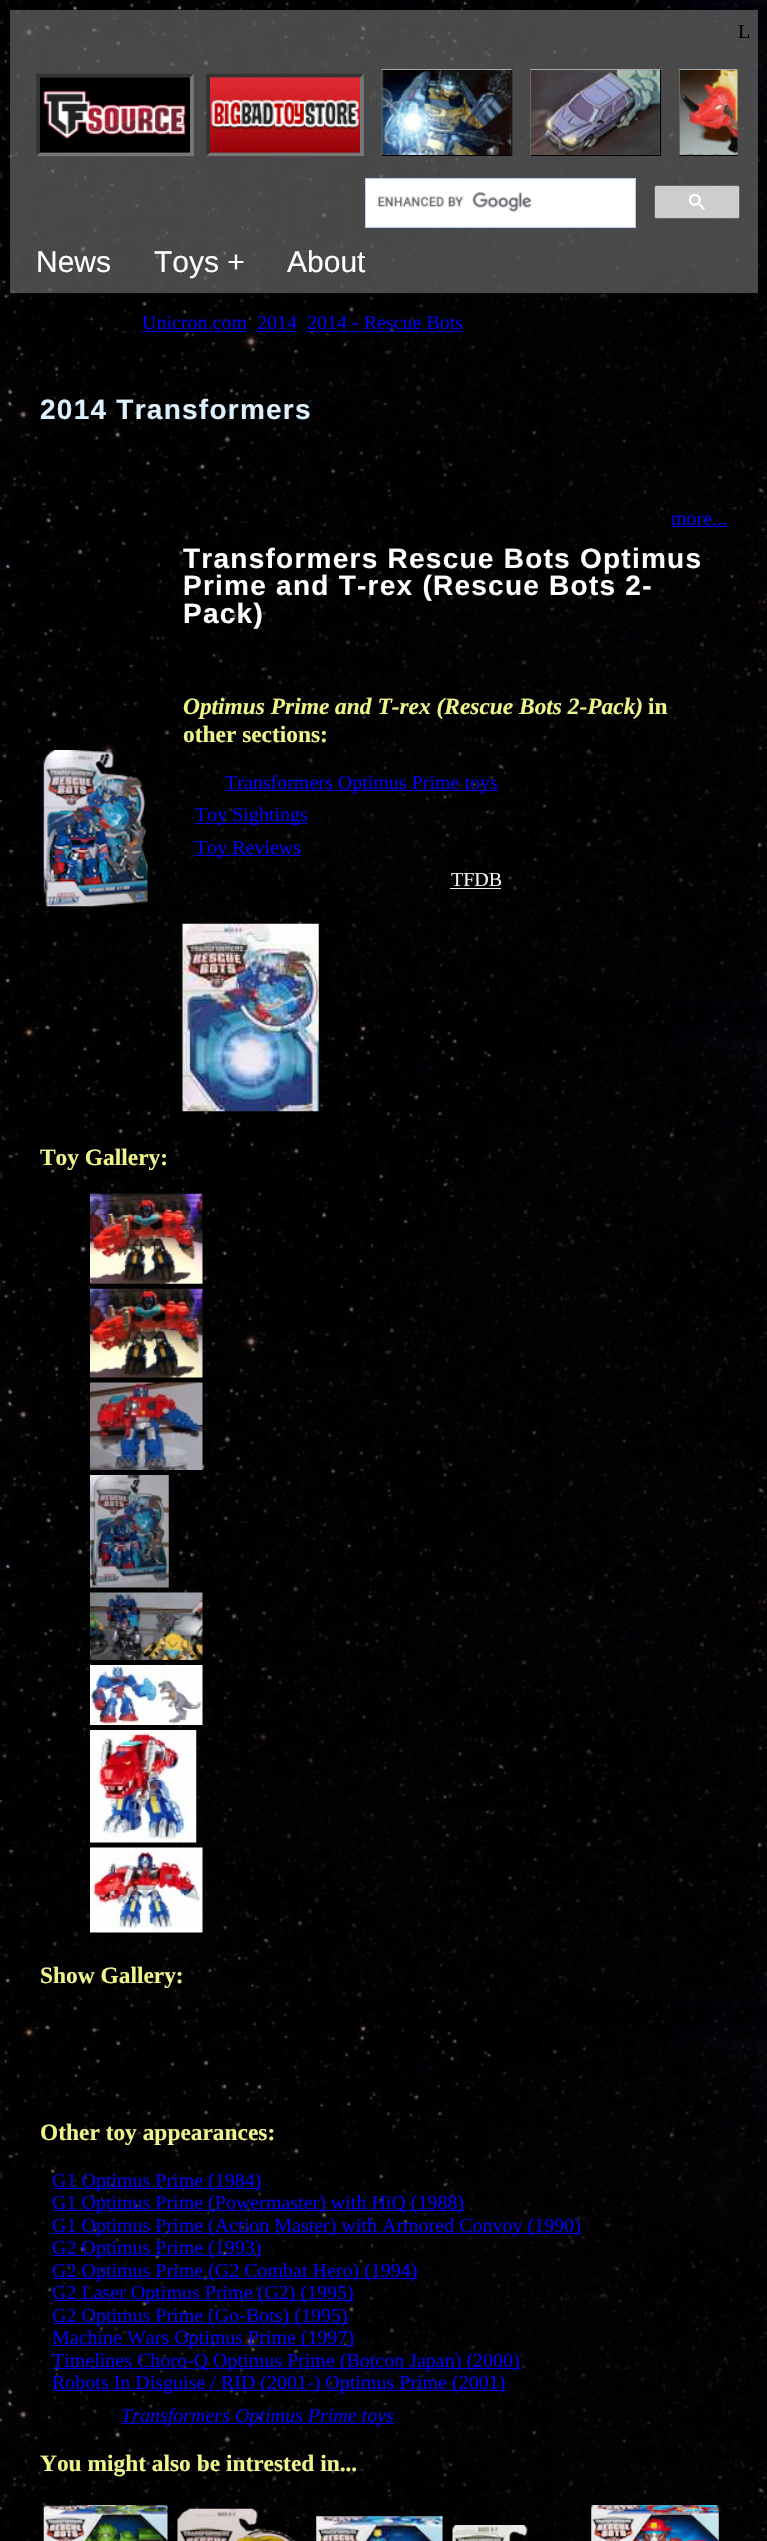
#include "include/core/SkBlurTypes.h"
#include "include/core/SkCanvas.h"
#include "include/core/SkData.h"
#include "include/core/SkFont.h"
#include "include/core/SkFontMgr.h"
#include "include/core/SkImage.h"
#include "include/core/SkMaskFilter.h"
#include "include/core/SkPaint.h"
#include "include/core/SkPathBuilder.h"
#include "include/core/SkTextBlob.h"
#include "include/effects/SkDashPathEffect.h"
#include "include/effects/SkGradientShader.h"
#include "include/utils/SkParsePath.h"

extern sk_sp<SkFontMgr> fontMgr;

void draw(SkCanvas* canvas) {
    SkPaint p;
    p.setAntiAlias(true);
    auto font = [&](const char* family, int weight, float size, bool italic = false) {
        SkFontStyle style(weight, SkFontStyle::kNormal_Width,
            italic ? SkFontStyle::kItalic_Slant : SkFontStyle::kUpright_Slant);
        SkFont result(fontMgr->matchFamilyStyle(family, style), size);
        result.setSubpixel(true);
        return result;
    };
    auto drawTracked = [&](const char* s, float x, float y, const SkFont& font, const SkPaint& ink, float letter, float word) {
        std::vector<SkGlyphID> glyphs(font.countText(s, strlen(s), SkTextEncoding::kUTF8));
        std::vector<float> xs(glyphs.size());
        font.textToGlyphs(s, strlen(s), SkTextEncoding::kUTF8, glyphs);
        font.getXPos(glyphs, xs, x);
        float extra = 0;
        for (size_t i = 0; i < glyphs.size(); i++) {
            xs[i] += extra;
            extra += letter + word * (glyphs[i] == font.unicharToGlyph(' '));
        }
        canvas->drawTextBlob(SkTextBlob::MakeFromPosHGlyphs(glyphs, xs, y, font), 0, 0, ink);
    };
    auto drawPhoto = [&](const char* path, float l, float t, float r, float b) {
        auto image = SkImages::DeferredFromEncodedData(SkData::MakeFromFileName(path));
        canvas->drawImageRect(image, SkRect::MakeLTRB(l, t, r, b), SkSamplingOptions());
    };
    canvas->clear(0xFFFFFFFF);
    drawPhoto("media/1.png", 0, 0, 767, 2541);
    p.setColor(0x99787878);
    canvas->drawRect(SkRect::MakeLTRB(10, 10, 758, 293), p);
    auto font1 = font("Liberation Serif", 400, 20);
    p.setColor(0xFF000000);
    canvas->drawString("L", 738, 38, font1, p);
    drawPhoto("media/2.png", 36, 69, 738, 157);
    p.setColor(0xFFFFFFFF);
    canvas->drawRect(SkRect::MakeLTRB(365.5f, 178.5f, 635.5f, 227.5f), p);
    p.setStyle(SkPaint::kStroke_Style);
    p.setStrokeWidth(1);
    p.setColor(0xFFBCCDF0);
    canvas->drawRect(SkRect::MakeLTRB(365.5f, 178.5f, 635.5f, 227.5f), p);
    drawPhoto("media/3.png", 377, 192, 532, 212);
    p.setStyle(SkPaint::kFill_Style);
    p.setColor(0xFFCECECE);
    canvas->drawRoundRect(SkRect::MakeLTRB(654.5f, 185.5f, 739.5f, 218.5f), 2, 2, p);
    p.setStyle(SkPaint::kStroke_Style);
    p.setColor(0xFF666666);
    canvas->drawRoundRect(SkRect::MakeLTRB(654.5f, 185.5f, 739.5f, 218.5f), 2, 2, p);
    drawPhoto("media/4.png", 689, 194, 705, 210);
    auto font2 = font("Liberation Sans", 400, 30);
    p.setStyle(SkPaint::kFill_Style);
    p.setColor(0xFFFFFFFF);
    {
        const struct { const char* s; float x, y; } items[] = {
            {"News", 36, 272},
            {"Toys +", 154, 272},
            {"About", 287, 272},
        };
        for (auto [s, x, y] : items) {
            canvas->drawString(s, x, y, font2, p);
        }
    }
    p.setColor(0xFF0000EE);
    canvas->drawString("Unicron.com", 142, 329, font1, p);
    canvas->drawRect(SkRect::MakeLTRB(141, 331, 246, 332), p);
    canvas->drawString("2014", 257, 329, font1, p);
    canvas->drawRect(SkRect::MakeLTRB(256, 331, 296, 332), p);
    canvas->drawString("2014 - Rescue Bots", 307, 329, font1, p);
    canvas->drawRect(SkRect::MakeLTRB(306, 331, 463, 332), p);
    auto font3 = font("Liberation Sans", 700, 28);
    p.setColor(0xFFDBF1FF);
    drawTracked("2014 Transformers", 40, 419, font3, p, 1.25f, 0);
    p.setColor(0xFF0000EE);
    canvas->drawString("more...", 671, 525, font1, p);
    canvas->drawRect(SkRect::MakeLTRB(671, 526, 728, 527), p);
    drawPhoto("media/5.png", 43, 750, 148, 907);
    canvas->save();
    canvas->clipRect(SkRect::MakeLTRB(183, 545, 724, 663));
    p.setColor(0xFFFFFFFF);
    drawTracked("Transformers Rescue Bots Optimus", 183, 568, font3, p, 1.25f, 0);
    canvas->restore();
    drawTracked("Prime and T-rex (Rescue Bots 2-", 183, 595, font3, p, 1.25f, 0);
    drawTracked("Pack)", 183, 623, font3, p, 1.25f, 0);
    auto font4 = font("Liberation Serif", 700, 23.4f, true);
    p.setColor(0xFFEEF489);
    canvas->drawString("Optimus Prime and T-rex (Rescue Bots 2-Pack)", 183, 714, font4, p);
    auto font5 = font("Liberation Serif", 700, 23.4f);
    canvas->drawString("in", 648, 714, font5, p);
    canvas->drawString("other sections:", 183, 742, font5, p);
    p.setColor(0xFF0000EE);
    canvas->drawRect(SkRect::MakeLTRB(225, 790, 498, 791), p);
    canvas->drawString("Transformers Optimus Prime toys", 225, 789, font1, p);
    canvas->drawRect(SkRect::MakeLTRB(195, 823, 308, 824), p);
    canvas->drawString("Toy Sightings", 195, 821, font1, p);
    canvas->drawRect(SkRect::MakeLTRB(195, 855, 300, 856), p);
    canvas->drawString("Toy Reviews", 195, 854, font1, p);
    p.setColor(0xFFEEEEEE);
    canvas->drawString("TFDB", 451, 886, font1, p);
    canvas->drawRect(SkRect::MakeLTRB(450, 888, 501, 889), p);
    drawPhoto("media/6.png", 182, 923, 319, 1112);
    p.setColor(0xFFEEF489);
    canvas->drawString("Toy Gallery:", 40, 1165, font5, p);
    p.setColor(0xFF000000);
    canvas->drawCircle(73, 1278, 3, p);
    drawPhoto("media/7.png", 90, 1193, 203, 1284);
    canvas->drawCircle(73, 1372, 3, p);
    drawPhoto("media/8.png", 90, 1288, 203, 1378);
    canvas->drawRoundRect(SkRect::MakeLTRB(70, 1461, 76, 1468), 3, 3, p);
    drawPhoto("media/9.png", 90, 1382, 203, 1470);
    drawPhoto("media/10.png", 90, 1475, 169, 1588);
    canvas->drawRoundRect(SkRect::MakeLTRB(70, 1651, 76, 1658), 3, 3, p);
    drawPhoto("media/11.png", 90, 1592, 203, 1660);
    canvas->drawRoundRect(SkRect::MakeLTRB(70, 1716, 76, 1723), 3, 3, p);
    drawPhoto("media/12.png", 90, 1665, 203, 1725);
    drawPhoto("media/13.png", 90, 1730, 197, 1843);
    canvas->drawCircle(73, 1927, 3, p);
    drawPhoto("media/14.png", 90, 1847, 203, 1933);
    p.setColor(0xFFEEF489);
    canvas->drawString("Show Gallery:", 40, 1983, font5, p);
    canvas->drawString("Other toy appearances:", 40, 2140, font5, p);
    p.setColor(0xFF0000EE);
    canvas->drawRect(SkRect::MakeLTRB(53, 2188, 261, 2189), p);
    canvas->drawString("G1 Optimus Prime (1984)", 52, 2187, font1, p);
    canvas->drawRect(SkRect::MakeLTRB(53, 2210, 464, 2211), p);
    canvas->drawString("G1 Optimus Prime (Powermaster) with HiQ (1988)", 52, 2209, font1, p);
    canvas->drawRect(SkRect::MakeLTRB(53, 2233, 581, 2234), p);
    canvas->drawString("G1 Optimus Prime (Action Master) with Armored Convoy (1990)", 52, 2232, font1, p);
    canvas->drawRect(SkRect::MakeLTRB(53, 2255, 261, 2256), p);
    canvas->drawString("G2 Optimus Prime (1993)", 52, 2254, font1, p);
    canvas->drawRect(SkRect::MakeLTRB(53, 2278, 418, 2279), p);
    canvas->drawString("G2 Optimus Prime (G2 Combat Hero) (1994)", 52, 2277, font1, p);
    canvas->drawRect(SkRect::MakeLTRB(53, 2300, 354, 2301), p);
    canvas->drawString("G2 Laser Optimus Prime (G2) (1995)", 52, 2299, font1, p);
    canvas->drawRect(SkRect::MakeLTRB(53, 2323, 348, 2324), p);
    canvas->drawString("G2 Optimus Prime (Go-Bots) (1995)", 52, 2322, font1, p);
    canvas->drawRect(SkRect::MakeLTRB(53, 2345, 354, 2346), p);
    canvas->drawString("Machine Wars Optimus Prime (1997)", 52, 2344, font1, p);
    canvas->drawRect(SkRect::MakeLTRB(53, 2368, 520, 2369), p);
    canvas->drawString("Timelines Choro-Q Optimus Prime (Botcon Japan) (2000)", 52, 2367, font1, p);
    canvas->drawRect(SkRect::MakeLTRB(53, 2390, 505, 2391), p);
    canvas->drawString("Robots In Disguise / RID (2001-) Optimus Prime (2001)", 52, 2389, font1, p);
    canvas->drawRect(SkRect::MakeLTRB(121, 2423, 394, 2424), p);
    auto font6 = font("Liberation Serif", 400, 20, true);
    canvas->drawString("Transformers Optimus Prime toys", 121, 2422, font6, p);
    p.setColor(0xFFEEF489);
    canvas->drawString("You might also be intrested in...", 40, 2471, font5, p);
    drawPhoto("media/15.png", 43, 2505, 168, 2541);
    drawPhoto("media/16.png", 177, 2508, 296, 2541);
    drawPhoto("media/17.png", 316, 2516, 443, 2541);
    drawPhoto("media/18.png", 452, 2525, 528, 2541);
    drawPhoto("media/19.png", 591, 2505, 719, 2541);
}
